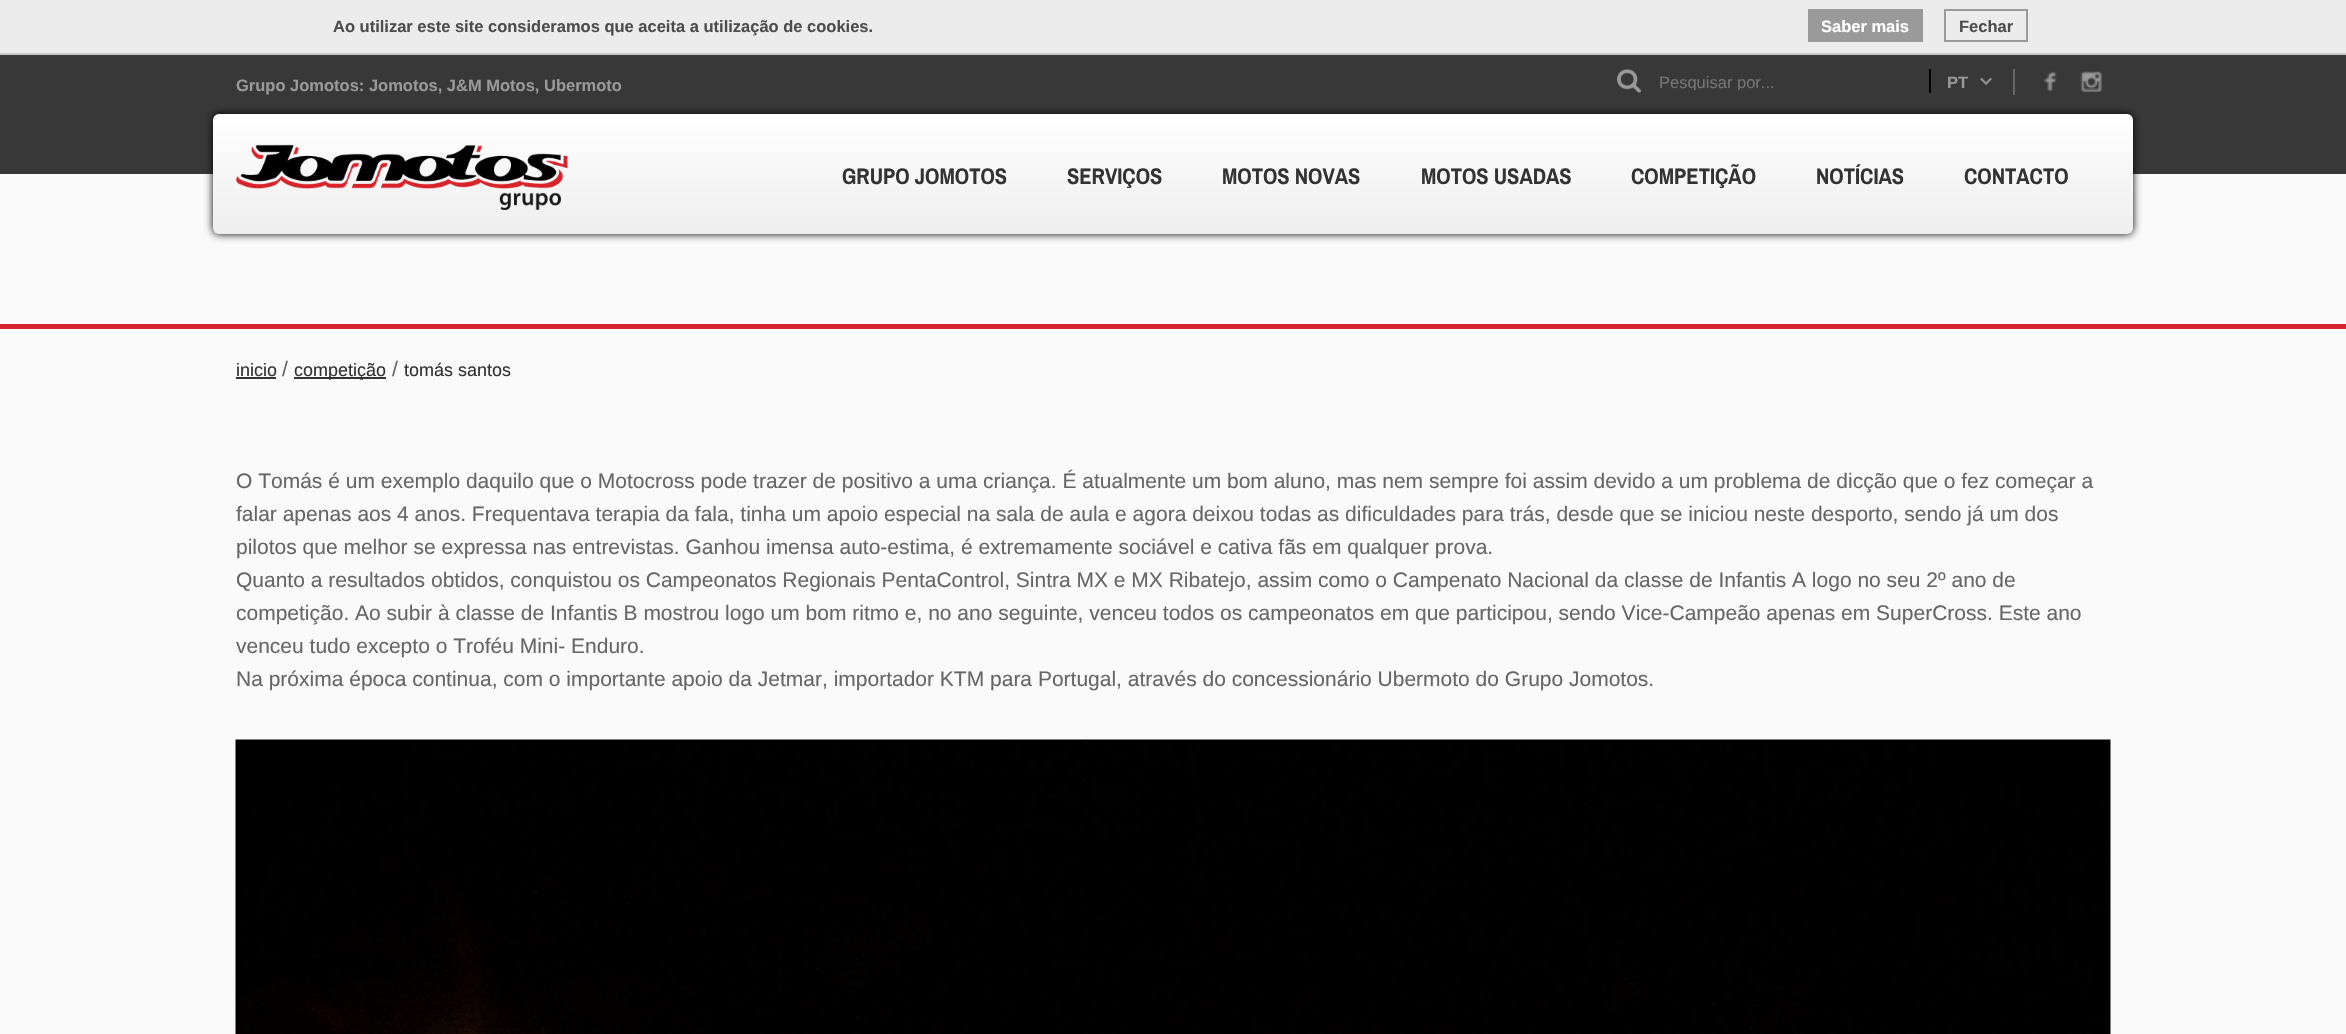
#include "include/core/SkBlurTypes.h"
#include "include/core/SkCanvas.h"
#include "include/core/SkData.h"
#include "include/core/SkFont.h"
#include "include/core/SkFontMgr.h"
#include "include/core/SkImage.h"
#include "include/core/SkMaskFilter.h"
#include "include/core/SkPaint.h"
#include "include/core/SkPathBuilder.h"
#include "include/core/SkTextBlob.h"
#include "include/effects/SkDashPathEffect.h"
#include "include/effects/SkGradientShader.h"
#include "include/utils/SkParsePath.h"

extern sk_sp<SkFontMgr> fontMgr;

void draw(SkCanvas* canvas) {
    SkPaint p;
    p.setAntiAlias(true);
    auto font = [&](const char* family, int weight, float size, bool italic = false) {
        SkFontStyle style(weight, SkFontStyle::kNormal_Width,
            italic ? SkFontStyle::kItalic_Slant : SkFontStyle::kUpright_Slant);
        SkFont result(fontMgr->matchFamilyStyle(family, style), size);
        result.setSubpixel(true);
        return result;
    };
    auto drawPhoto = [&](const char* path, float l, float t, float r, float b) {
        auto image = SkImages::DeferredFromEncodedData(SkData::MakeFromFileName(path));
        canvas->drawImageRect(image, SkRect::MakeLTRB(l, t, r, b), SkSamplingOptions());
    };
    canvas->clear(0xFF383838);
    p.setColor(0xFFECECEC);
    canvas->drawRect(SkRect::MakeLTRB(0, 0, 2346, 53), p);
    p.setColor(0xFFC9C9C9);
    canvas->drawRect(SkRect::MakeLTRB(0, 53, 2346, 55), p);
    auto font1 = font("Liberation Sans", 700, 16.5f);
    p.setColor(0xFF4D4D4D);
    canvas->drawString("Ao utilizar este site consideramos que aceita a utilização de cookies.", 333, 32, font1, p);
    p.setColor(0xFF9A9A9A);
    canvas->drawRect(SkRect::MakeLTRB(1808, 9, 1923, 42), p);
    p.setColor(0xFFFFFFFF);
    canvas->drawString("Saber mais", 1821, 32, font1, p);
    p.setStyle(SkPaint::kStroke_Style);
    p.setStrokeWidth(2);
    p.setColor(0xFF9A9A9A);
    canvas->drawRect(SkRect::MakeLTRB(1945, 10, 2027, 41), p);
    p.setStyle(SkPaint::kFill_Style);
    p.setColor(0xFF4D4D4D);
    canvas->drawString("Fechar", 1959, 32, font1, p);
    p.setColor(0xFF999999);
    canvas->drawString("Grupo Jomotos: Jomotos, J&M Motos, Ubermoto", 236, 91, font1, p);
    drawPhoto("media/1.png", 1617, 69, 1641, 93);
    p.setColor(0xFF000000);
    canvas->drawRect(SkRect::MakeLTRB(1929, 69, 1931, 93), p);
    canvas->save();
    canvas->clipRect(SkRect::MakeLTRB(1659, 72, 1922, 90));
    auto font2 = font("Liberation Sans", 400, 16.5f);
    p.setColor(0xFF757575);
    canvas->drawString("Pesquisar por...", 1659, 88, font2, p);
    canvas->restore();
    p.setColor(0xFF666666);
    canvas->drawRect(SkRect::MakeLTRB(2013, 69, 2015, 95), p);
    drawPhoto("media/2.png", 1980, 77, 1992, 85);
    p.setColor(0xFF999999);
    canvas->drawString("PT", 1947, 88, font1, p);
    drawPhoto("media/3.png", 2044, 71, 2057, 92);
    drawPhoto("media/4.png", 2080, 71, 2103, 93);
    p.setColor(0xFFFAFAFA);
    canvas->drawRect(SkRect::MakeLTRB(0, 174, 2346, 1034), p);
    p.setColor(0xFF000000);
    p.setMaskFilter(SkMaskFilter::MakeBlur(kNormal_SkBlurStyle, 4.5f));
    canvas->drawRoundRect(SkRect::MakeLTRB(213, 114, 2133, 234), 6, 6, p);
    p.setMaskFilter(nullptr);
    {
        const SkColor colors[] = {0xFFFFFFFF, 0xFFEEEEEE};
        const float stops[] = {0, 1};
        const SkPoint ends[] = {{1173, 114}, {1173, 234}};
        p.setShader(SkGradientShader::MakeLinear(ends, colors, stops, 2, SkTileMode::kClamp));
        p.setAlpha(255);
    }
    canvas->drawRoundRect(SkRect::MakeLTRB(213, 114, 2133, 234), 6, 6, p);
    drawPhoto("media/5.png", 236, 144, 568, 210);
    auto font3 = font("Archivo Narrow", 700, 22.5f);
    p.setShader(nullptr);
    p.setColor(0xFF333333);
    {
        const struct { const char* s; float x, y; } items[] = {
            {"GRUPO JOMOTOS", 842, 184},
            {"SERVIÇOS", 1067, 184},
            {"MOTOS NOVAS", 1222, 184},
            {"MOTOS USADAS", 1421, 184},
            {"COMPETIÇÃO", 1631, 184},
            {"NOTÍCIAS", 1816, 184},
            {"CONTACTO", 1964, 184},
        };
        for (auto [s, x, y] : items) {
            canvas->drawString(s, x, y, font3, p);
        }
    }
    p.setColor(0xFFD62631);
    canvas->drawRect(SkRect::MakeLTRB(0, 324, 2346, 329), p);
    auto font4 = font("Liberation Sans", 400, 18);
    p.setColor(0xFF333333);
    canvas->drawString("inicio", 236, 376, font4, p);
    canvas->drawRect(SkRect::MakeLTRB(236, 377, 276, 379), p);
    auto font5 = font("Liberation Sans", 400, 21);
    p.setColor(0xFF666666);
    canvas->drawString("/", 282, 376, font5, p);
    p.setColor(0xFF333333);
    canvas->drawRect(SkRect::MakeLTRB(294, 377, 386, 379), p);
    canvas->drawString("competição", 294, 376, font4, p);
    p.setColor(0xFF666666);
    canvas->drawString("/", 392, 376, font5, p);
    p.setColor(0xFF333333);
    canvas->drawString("tomás santos", 404, 376, font4, p);
    p.setColor(0xFF666666);
    {
        const struct { const char* s; float x, y; } items[] = {
            {"O Tomás é um exemplo daquilo que o Motocross pode trazer de positivo a uma criança. É atualmente um bom aluno, mas nem sempre foi assim devido a um problema de dicção que o fez começar a", 236, 488},
            {"falar apenas aos 4 anos. Frequentava terapia da fala, tinha um apoio especial na sala de aula e agora deixou todas as dificuldades para trás, desde que se iniciou neste desporto, sendo já um dos", 236, 521},
            {"pilotos que melhor se expressa nas entrevistas. Ganhou imensa auto-estima, é extremamente sociável e cativa fãs em qualquer prova.", 236, 554},
            {"Quanto a resultados obtidos, conquistou os Campeonatos Regionais PentaControl, Sintra MX e MX Ribatejo, assim como o Campenato Nacional da classe de Infantis A logo no seu 2º ano de", 236, 587},
            {"competição. Ao subir à classe de Infantis B mostrou logo um bom ritmo e, no ano seguinte, venceu todos os campeonatos em que participou, sendo Vice-Campeão apenas em SuperCross. Este ano", 236, 620},
            {"venceu tudo excepto o Troféu Mini- Enduro.", 236, 653},
            {"Na próxima época continua, com o importante apoio da Jetmar, importador KTM para Portugal, através do concessionário Ubermoto do Grupo Jomotos.", 236, 686},
        };
        for (auto [s, x, y] : items) {
            canvas->drawString(s, x, y, font5, p);
        }
    }
    drawPhoto("media/6.png", 235, 739, 2111, 1034);
}
